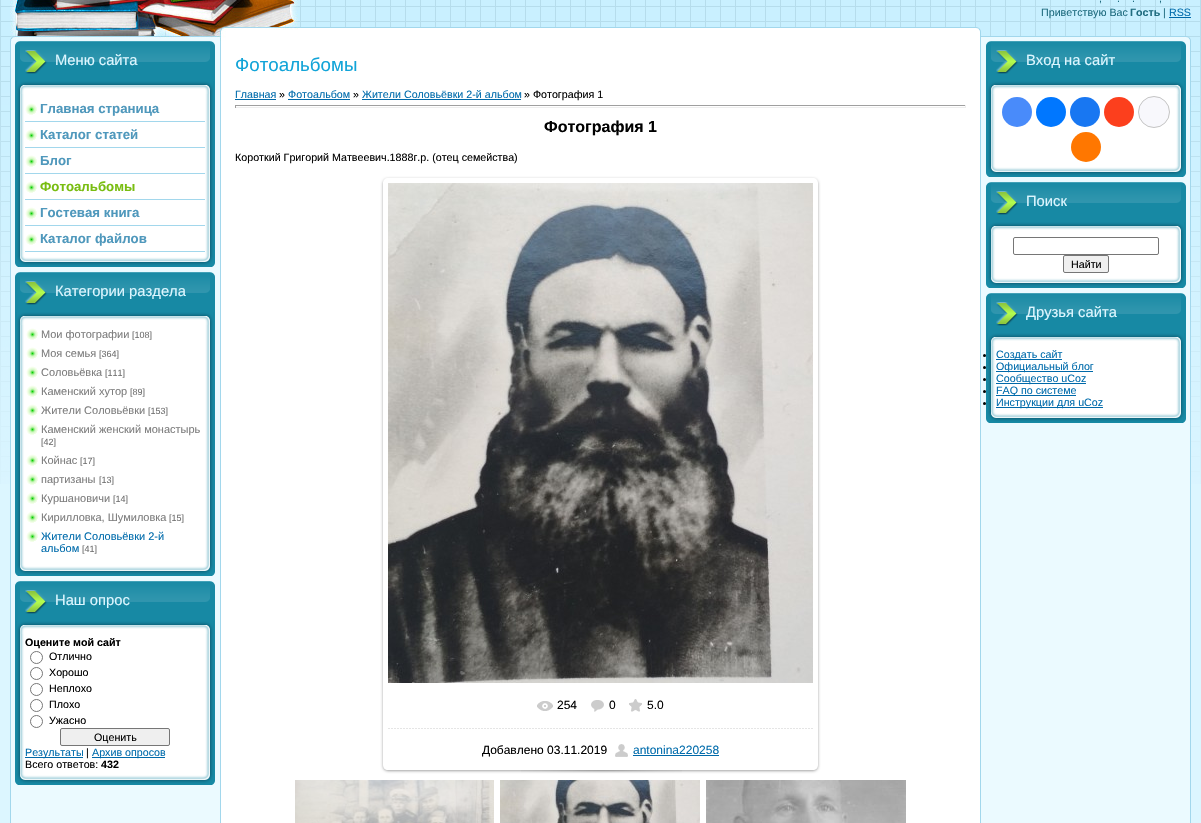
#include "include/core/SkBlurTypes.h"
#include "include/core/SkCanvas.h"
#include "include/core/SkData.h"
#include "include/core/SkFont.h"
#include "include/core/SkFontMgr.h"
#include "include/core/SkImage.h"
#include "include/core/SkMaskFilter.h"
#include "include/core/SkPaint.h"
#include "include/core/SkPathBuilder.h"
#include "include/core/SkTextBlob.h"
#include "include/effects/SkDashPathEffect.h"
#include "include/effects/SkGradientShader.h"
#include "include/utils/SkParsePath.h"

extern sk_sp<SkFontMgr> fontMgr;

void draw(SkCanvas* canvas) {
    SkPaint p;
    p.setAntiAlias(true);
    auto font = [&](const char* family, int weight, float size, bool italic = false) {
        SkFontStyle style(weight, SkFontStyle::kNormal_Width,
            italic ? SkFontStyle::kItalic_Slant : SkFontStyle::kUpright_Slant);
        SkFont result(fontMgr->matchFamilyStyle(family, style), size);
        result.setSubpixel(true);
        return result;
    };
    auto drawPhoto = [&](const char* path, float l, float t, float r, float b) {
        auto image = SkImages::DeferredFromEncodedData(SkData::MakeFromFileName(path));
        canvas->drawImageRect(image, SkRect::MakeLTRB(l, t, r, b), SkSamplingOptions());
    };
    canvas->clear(0xFFDCF6FF);
    drawPhoto("media/1.png", 0, 0, 1201, 484);
    drawPhoto("media/2.png", 298, 27, 1191, 41);
    drawPhoto("media/3.png", 10, 0, 298, 41);
    auto font1 = font("Liberation Sans", 400, 10.7f);
    p.setColor(0xFF1F6C7F);
    {
        const struct { const char* s; float x, y; } items[] = {
            {",", 1099, 2},
            {".", 1117, 2},
            {".", 1132, 2},
            {",", 1159, 2},
            {"Приветствую Вас", 1041, 16},
        };
        for (auto [s, x, y] : items) {
            canvas->drawString(s, x, y, font1, p);
        }
    }
    auto font2 = font("Liberation Sans", 700, 10.7f);
    canvas->drawString("Гость", 1130, 16, font2, p);
    canvas->drawString("|", 1163, 16, font1, p);
    p.setColor(0xFF016CAC);
    canvas->drawString("RSS", 1169, 16, font1, p);
    p.setColor(0xFF0069A9);
    canvas->drawRect(SkRect::MakeLTRB(1169, 17, 1191, 18), p);
    drawPhoto("media/4.png", 10, 41, 225, 823);
    drawPhoto("media/5.png", 15, 81, 215, 267);
    p.setColor(0xFF1789A4);
    canvas->drawRect(SkRect::MakeLTRB(15, 74, 215, 81), p);
    drawPhoto("media/6.png", 15, 41, 215, 74);
    auto font3 = font("Liberation Sans", 400, 14.75f);
    p.setColor(0xFFDCF6FF);
    canvas->drawString("Меню сайта", 55, 65, font3, p);
    drawPhoto("media/7.png", 17, 81, 213, 94);
    drawPhoto("media/8.png", 25, 103, 37, 115);
    p.setColor(0xFFA2D7EC);
    canvas->drawRect(SkRect::MakeLTRB(25, 121, 205, 122), p);
    auto font4 = font("Liberation Sans", 700, 13.25f);
    p.setColor(0xFF4F98BC);
    canvas->drawString("Главная страница", 40, 113, font4, p);
    drawPhoto("media/8.png", 25, 129, 37, 141);
    p.setColor(0xFFA2D7EC);
    canvas->drawRect(SkRect::MakeLTRB(25, 147, 205, 148), p);
    p.setColor(0xFF4F98BC);
    canvas->drawString("Каталог статей", 40, 139, font4, p);
    drawPhoto("media/8.png", 25, 155, 37, 167);
    p.setColor(0xFFA2D7EC);
    canvas->drawRect(SkRect::MakeLTRB(25, 173, 205, 174), p);
    p.setColor(0xFF4F98BC);
    canvas->drawString("Блог", 40, 165, font4, p);
    drawPhoto("media/8.png", 25, 181, 37, 193);
    p.setColor(0xFFA2D7EC);
    canvas->drawRect(SkRect::MakeLTRB(25, 199, 205, 200), p);
    p.setColor(0xFF79BD11);
    canvas->drawString("Фотоальбомы", 40, 191, font4, p);
    drawPhoto("media/8.png", 25, 207, 37, 219);
    p.setColor(0xFFA2D7EC);
    canvas->drawRect(SkRect::MakeLTRB(25, 225, 205, 226), p);
    p.setColor(0xFF4F98BC);
    canvas->drawString("Гостевая книга", 40, 217, font4, p);
    drawPhoto("media/8.png", 25, 233, 37, 245);
    p.setColor(0xFFA2D7EC);
    canvas->drawRect(SkRect::MakeLTRB(25, 251, 205, 252), p);
    p.setColor(0xFF4F98BC);
    canvas->drawString("Каталог файлов", 40, 243, font4, p);
    drawPhoto("media/9.png", 15, 312, 215, 576);
    p.setColor(0xFF1789A4);
    canvas->drawRect(SkRect::MakeLTRB(15, 305, 215, 312), p);
    drawPhoto("media/6.png", 15, 272, 215, 305);
    p.setColor(0xFFDCF6FF);
    canvas->drawString("Категории раздела", 55, 296, font3, p);
    drawPhoto("media/7.png", 17, 312, 213, 325);
    drawPhoto("media/8.png", 26, 328, 38, 340);
    auto font5 = font("Liberation Sans", 400, 11);
    p.setColor(0xFF7D7D7D);
    canvas->drawString("Мои фотографии", 41, 338, font5, p);
    auto font6 = font("Liberation Sans", 400, 9);
    p.setColor(0xFF6E6E6E);
    canvas->drawString("[108]", 132, 338, font6, p);
    drawPhoto("media/8.png", 26, 347, 38, 359);
    p.setColor(0xFF7D7D7D);
    canvas->drawString("Моя семья", 41, 357, font5, p);
    p.setColor(0xFF6E6E6E);
    canvas->drawString("[364]", 99, 357, font6, p);
    drawPhoto("media/8.png", 26, 366, 38, 378);
    p.setColor(0xFF7D7D7D);
    canvas->drawString("Соловьёвка", 41, 376, font5, p);
    p.setColor(0xFF6E6E6E);
    canvas->drawString("[111]", 105, 376, font6, p);
    drawPhoto("media/8.png", 26, 385, 38, 397);
    p.setColor(0xFF7D7D7D);
    canvas->drawString("Каменский хутор", 41, 395, font5, p);
    p.setColor(0xFF6E6E6E);
    canvas->drawString("[89]", 130, 395, font6, p);
    drawPhoto("media/8.png", 26, 404, 38, 416);
    p.setColor(0xFF7D7D7D);
    canvas->drawString("Жители Соловьёвки", 41, 414, font5, p);
    p.setColor(0xFF6E6E6E);
    canvas->drawString("[153]", 148, 414, font6, p);
    drawPhoto("media/8.png", 26, 423, 38, 435);
    p.setColor(0xFF7D7D7D);
    canvas->drawString("Каменский женский монастырь", 41, 433, font5, p);
    p.setColor(0xFF6E6E6E);
    canvas->drawString("[42]", 41, 445, font6, p);
    drawPhoto("media/8.png", 26, 454, 38, 466);
    p.setColor(0xFF7D7D7D);
    canvas->drawString("Койнас", 41, 464, font5, p);
    p.setColor(0xFF6E6E6E);
    canvas->drawString("[17]", 80, 464, font6, p);
    drawPhoto("media/8.png", 26, 473, 38, 485);
    p.setColor(0xFF7D7D7D);
    canvas->drawString("партизаны", 41, 483, font5, p);
    p.setColor(0xFF6E6E6E);
    canvas->drawString("[13]", 99, 483, font6, p);
    drawPhoto("media/8.png", 26, 492, 38, 504);
    p.setColor(0xFF7D7D7D);
    canvas->drawString("Куршановичи", 41, 502, font5, p);
    p.setColor(0xFF6E6E6E);
    canvas->drawString("[14]", 113, 502, font6, p);
    drawPhoto("media/8.png", 26, 511, 38, 523);
    p.setColor(0xFF7D7D7D);
    canvas->drawString("Кирилловка, Шумиловка", 41, 521, font5, p);
    p.setColor(0xFF6E6E6E);
    canvas->drawString("[15]", 169, 521, font6, p);
    drawPhoto("media/8.png", 26, 530, 38, 542);
    p.setColor(0xFF016CAC);
    canvas->drawString("Жители Соловьёвки 2-й", 41, 540, font5, p);
    canvas->drawString("альбом", 41, 552, font5, p);
    p.setColor(0xFF6E6E6E);
    canvas->drawString("[41]", 82, 552, font6, p);
    drawPhoto("media/10.png", 15, 621, 215, 785);
    p.setColor(0xFF1789A4);
    canvas->drawRect(SkRect::MakeLTRB(15, 614, 215, 621), p);
    drawPhoto("media/6.png", 15, 581, 215, 614);
    p.setColor(0xFFDCF6FF);
    canvas->drawString("Наш опрос", 55, 605, font3, p);
    drawPhoto("media/7.png", 17, 621, 213, 634);
    p.setColor(0xFF000000);
    canvas->drawString("Оцените мой сайт", 25, 646, font2, p);
    p.setStyle(SkPaint::kStroke_Style);
    p.setStrokeWidth(1);
    p.setColor(0xFF767676);
    canvas->drawCircle(36.5f, 657.5f, 6, p);
    p.setStyle(SkPaint::kFill_Style);
    p.setColor(0xFF000000);
    canvas->drawString("Отлично", 49, 660, font1, p);
    p.setStyle(SkPaint::kStroke_Style);
    p.setColor(0xFF767676);
    canvas->drawCircle(36.5f, 673.5f, 6, p);
    p.setStyle(SkPaint::kFill_Style);
    p.setColor(0xFF000000);
    canvas->drawString("Хорошо", 49, 676, font1, p);
    p.setStyle(SkPaint::kStroke_Style);
    p.setColor(0xFF767676);
    canvas->drawCircle(36.5f, 689.5f, 6, p);
    p.setStyle(SkPaint::kFill_Style);
    p.setColor(0xFF000000);
    canvas->drawString("Неплохо", 49, 692, font1, p);
    p.setStyle(SkPaint::kStroke_Style);
    p.setColor(0xFF767676);
    canvas->drawCircle(36.5f, 705.5f, 6, p);
    p.setStyle(SkPaint::kFill_Style);
    p.setColor(0xFF000000);
    canvas->drawString("Плохо", 49, 708, font1, p);
    p.setStyle(SkPaint::kStroke_Style);
    p.setColor(0xFF767676);
    canvas->drawCircle(36.5f, 721.5f, 6, p);
    p.setStyle(SkPaint::kFill_Style);
    p.setColor(0xFF000000);
    canvas->drawString("Ужасно", 49, 724, font1, p);
    p.setColor(0xFFEFEFEF);
    canvas->drawRoundRect(SkRect::MakeLTRB(60.5f, 728.5f, 169.5f, 745.5f), 1.5f, 1.5f, p);
    p.setStyle(SkPaint::kStroke_Style);
    p.setColor(0xFF767676);
    canvas->drawRoundRect(SkRect::MakeLTRB(60.5f, 728.5f, 169.5f, 745.5f), 1.5f, 1.5f, p);
    p.setStyle(SkPaint::kFill_Style);
    p.setColor(0xFF000000);
    canvas->drawString("Оценить", 94, 741, font1, p);
    p.setColor(0xFF0069A9);
    canvas->drawRect(SkRect::MakeLTRB(25, 757, 83, 758), p);
    p.setColor(0xFF016CAC);
    canvas->drawString("Результаты", 25, 756, font1, p);
    p.setColor(0xFF000000);
    canvas->drawString("|", 86, 756, font1, p);
    p.setColor(0xFF0069A9);
    canvas->drawRect(SkRect::MakeLTRB(92, 757, 165, 758), p);
    p.setColor(0xFF016CAC);
    canvas->drawString("Архив опросов", 92, 756, font1, p);
    p.setColor(0xFF000000);
    canvas->drawString("Всего ответов:", 25, 768, font1, p);
    canvas->drawString("432", 101, 768, font2, p);
    p.setColor(0xFFFFFFFF);
    canvas->drawRect(SkRect::MakeLTRB(225, 41, 976, 823), p);
    auto font7 = font("Liberation Sans", 400, 18.75f);
    p.setColor(0xFF12A4D8);
    canvas->drawString("Фотоальбомы", 235, 71, font7, p);
    p.setColor(0xFF016CAC);
    canvas->drawString("Главная", 235, 98, font1, p);
    p.setColor(0xFF0069A9);
    canvas->drawRect(SkRect::MakeLTRB(235, 99, 276, 100), p);
    p.setColor(0xFF000000);
    canvas->drawString("»", 279, 98, font1, p);
    p.setColor(0xFF016CAC);
    canvas->drawString("Фотоальбом", 288, 98, font1, p);
    p.setColor(0xFF0069A9);
    canvas->drawRect(SkRect::MakeLTRB(288, 99, 350, 100), p);
    p.setColor(0xFF000000);
    canvas->drawString("»", 353, 98, font1, p);
    p.setColor(0xFF016CAC);
    canvas->drawString("Жители Соловьёвки 2-й альбом", 362, 98, font1, p);
    p.setColor(0xFF0069A9);
    canvas->drawRect(SkRect::MakeLTRB(362, 99, 521, 100), p);
    p.setColor(0xFF000000);
    canvas->drawString("» Фотография 1", 524, 98, font1, p);
    {
        const struct { float l, t, r, b; SkColor color; } items[] = {
            {235, 105, 966, 106, 0xFF9F9F9F},
            {965, 105, 966, 108, 0xFFEEEEEE},
            {235, 107, 966, 108, 0xFFEEEEEE},
            {235, 105, 236, 108, 0xFF9F9F9F},
        };
        for (auto [l, t, r, b, color] : items) {
            p.setColor(color);
            canvas->drawRect(SkRect::MakeLTRB(l, t, r, b), p);
        }
    }
    auto font8 = font("Liberation Sans", 700, 16);
    p.setColor(0xFF000000);
    canvas->drawString("Фотография 1", 544, 132, font8, p);
    canvas->drawString("Короткий Григорий Матвеевич.1888г.р. (отец семейства)", 235, 161, font1, p);
    canvas->save();
    canvas->clipPath(SkPathBuilder(SkPathFillType::kEvenOdd).moveTo(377, 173).lineTo(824, 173).lineTo(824, 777).lineTo(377, 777).close().moveTo(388, 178).lineTo(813, 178).cubicTo(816, 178, 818, 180, 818, 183).lineTo(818, 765).cubicTo(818, 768, 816, 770, 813, 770).lineTo(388, 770).cubicTo(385, 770, 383, 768, 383, 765).lineTo(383, 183).cubicTo(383, 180, 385, 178, 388, 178).close().detach(), true);
    p.setColor(0x5E000000);
    p.setMaskFilter(SkMaskFilter::MakeBlur(kNormal_SkBlurStyle, 1.5f));
    canvas->drawRoundRect(SkRect::MakeLTRB(383, 179, 818, 771), 5, 5, p);
    p.setMaskFilter(nullptr);
    canvas->restore();
    drawPhoto("media/11.png", 388, 183, 813, 683);
    drawPhoto("media/12.png", 537, 701, 553, 711);
    auto font9 = font("Liberation Sans", 400, 12);
    p.setColor(0xFF000000);
    canvas->drawString("254", 557, 709, font9, p);
    drawPhoto("media/13.png", 591, 700, 604, 712);
    canvas->drawString("0", 609, 709, font9, p);
    drawPhoto("media/14.png", 629, 699, 642, 712);
    canvas->drawString("5.0", 647, 709, font9, p);
    drawPhoto("media/15.png", 388, 728, 813, 729);
    canvas->drawString("Добавлено 03.11.2019", 482, 754, font9, p);
    drawPhoto("media/16.png", 615, 744, 628, 757);
    p.setColor(0xFF016CAC);
    canvas->drawString("antonina220258", 633, 754, font9, p);
    p.setColor(0xFF0069A9);
    canvas->drawRect(SkRect::MakeLTRB(633, 755, 719, 756), p);
    drawPhoto("media/17.png", 521, 770, 682, 773);
    drawPhoto("media/18.png", 295, 780, 494, 823);
    drawPhoto("media/19.png", 500, 780, 700, 823);
    drawPhoto("media/20.png", 706, 780, 906, 823);
    drawPhoto("media/21.png", 976, 41, 1191, 823);
    drawPhoto("media/22.png", 986, 81, 1186, 177);
    p.setColor(0xFF1789A4);
    canvas->drawRect(SkRect::MakeLTRB(986, 74, 1186, 81), p);
    drawPhoto("media/6.png", 986, 41, 1186, 74);
    p.setColor(0xFFDCF6FF);
    canvas->drawString("Вход на сайт", 1026, 65, font3, p);
    drawPhoto("media/7.png", 988, 81, 1184, 94);
    p.setColor(0xFF498BFA);
    canvas->drawCircle(1017, 112, 15, p);
    p.setColor(0xFF0077FF);
    canvas->drawCircle(1051, 112, 15, p);
    p.setColor(0xFF1877F2);
    canvas->drawCircle(1085, 112, 15, p);
    p.setColor(0xFFFC3F1D);
    canvas->drawCircle(1119, 112, 15, p);
    p.setColor(0xFFF8F8FC);
    canvas->drawCircle(1154, 112, 15.5f, p);
    p.setStyle(SkPaint::kStroke_Style);
    p.setColor(0xFFC4C4C4);
    canvas->drawCircle(1154, 112, 15.5f, p);
    p.setStyle(SkPaint::kFill_Style);
    p.setColor(0xFFFF7700);
    canvas->drawCircle(1086, 147, 15, p);
    drawPhoto("media/23.png", 986, 222, 1186, 288);
    p.setColor(0xFF1789A4);
    canvas->drawRect(SkRect::MakeLTRB(986, 215, 1186, 222), p);
    drawPhoto("media/6.png", 986, 182, 1186, 215);
    p.setColor(0xFFDCF6FF);
    canvas->drawString("Поиск", 1026, 206, font3, p);
    drawPhoto("media/7.png", 988, 222, 1184, 235);
    p.setStyle(SkPaint::kStroke_Style);
    p.setColor(0xFF767676);
    canvas->drawRoundRect(SkRect::MakeLTRB(1013.5f, 237.5f, 1158.5f, 254.5f), 1.5f, 1.5f, p);
    p.setStyle(SkPaint::kFill_Style);
    p.setColor(0xFFEFEFEF);
    canvas->drawRoundRect(SkRect::MakeLTRB(1063.5f, 255.5f, 1108.5f, 272.5f), 1.5f, 1.5f, p);
    p.setStyle(SkPaint::kStroke_Style);
    p.setColor(0xFF767676);
    canvas->drawRoundRect(SkRect::MakeLTRB(1063.5f, 255.5f, 1108.5f, 272.5f), 1.5f, 1.5f, p);
    p.setStyle(SkPaint::kFill_Style);
    p.setColor(0xFF000000);
    canvas->drawString("Найти", 1071, 268, font1, p);
    drawPhoto("media/24.png", 986, 333, 1186, 423);
    p.setColor(0xFF1789A4);
    canvas->drawRect(SkRect::MakeLTRB(986, 326, 1186, 333), p);
    drawPhoto("media/6.png", 986, 293, 1186, 326);
    p.setColor(0xFFDCF6FF);
    canvas->drawString("Друзья сайта", 1026, 317, font3, p);
    drawPhoto("media/7.png", 988, 333, 1184, 346);
    p.setColor(0xFF000000);
    canvas->drawCircle(984.5f, 355.5f, 1.5f, p);
    p.setColor(0xFF0069A9);
    canvas->drawRect(SkRect::MakeLTRB(996, 359, 1062, 360), p);
    p.setColor(0xFF016CAC);
    canvas->drawString("Создать сайт", 996, 358, font1, p);
    p.setColor(0xFF000000);
    canvas->drawCircle(984.5f, 367.5f, 1.5f, p);
    p.setColor(0xFF0069A9);
    canvas->drawRect(SkRect::MakeLTRB(996, 371, 1093, 372), p);
    p.setColor(0xFF016CAC);
    canvas->drawString("Официальный блог", 996, 370, font1, p);
    p.setColor(0xFF000000);
    canvas->drawCircle(984.5f, 379.5f, 1.5f, p);
    p.setColor(0xFF0069A9);
    canvas->drawRect(SkRect::MakeLTRB(996, 383, 1086, 384), p);
    p.setColor(0xFF016CAC);
    canvas->drawString("Сообщество uCoz", 996, 382, font1, p);
    p.setColor(0xFF000000);
    canvas->drawCircle(984.5f, 391.5f, 1.5f, p);
    p.setColor(0xFF0069A9);
    canvas->drawRect(SkRect::MakeLTRB(996, 395, 1076, 396), p);
    p.setColor(0xFF016CAC);
    canvas->drawString("FAQ по системе", 996, 394, font1, p);
    p.setColor(0xFF000000);
    canvas->drawCircle(984.5f, 403.5f, 1.5f, p);
    p.setColor(0xFF0069A9);
    canvas->drawRect(SkRect::MakeLTRB(996, 407, 1103, 408), p);
    p.setColor(0xFF016CAC);
    canvas->drawString("Инструкции для uCoz", 996, 406, font1, p);
}
